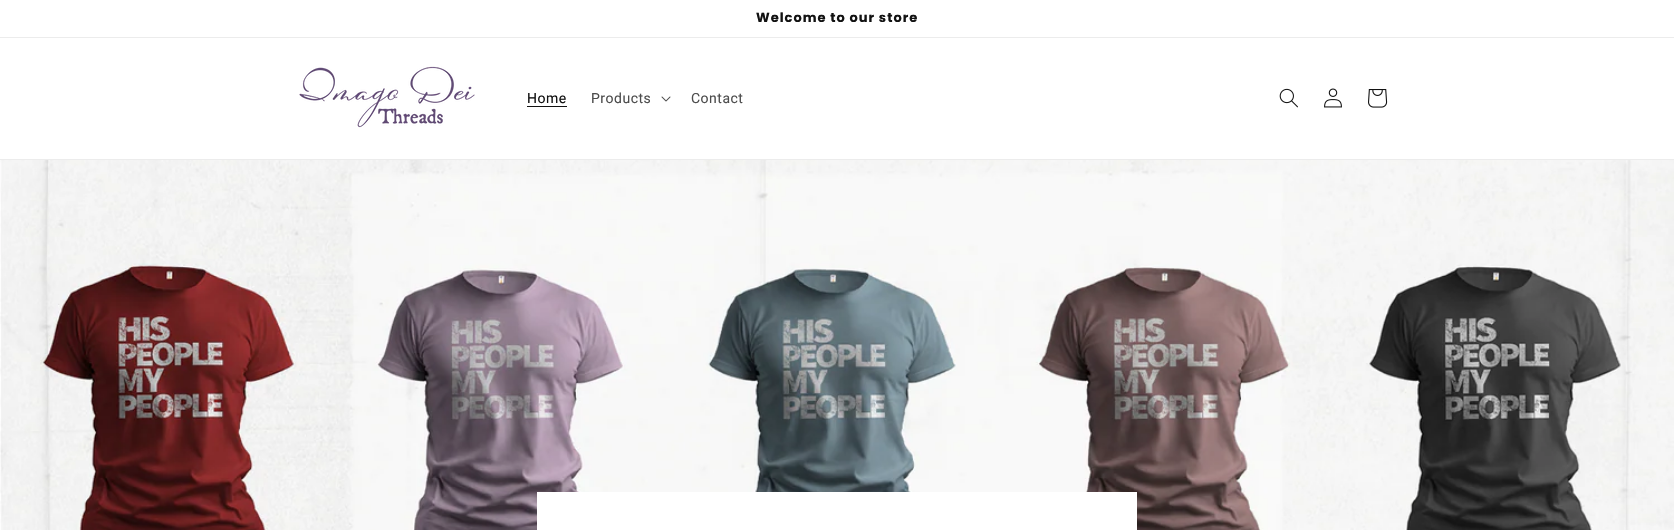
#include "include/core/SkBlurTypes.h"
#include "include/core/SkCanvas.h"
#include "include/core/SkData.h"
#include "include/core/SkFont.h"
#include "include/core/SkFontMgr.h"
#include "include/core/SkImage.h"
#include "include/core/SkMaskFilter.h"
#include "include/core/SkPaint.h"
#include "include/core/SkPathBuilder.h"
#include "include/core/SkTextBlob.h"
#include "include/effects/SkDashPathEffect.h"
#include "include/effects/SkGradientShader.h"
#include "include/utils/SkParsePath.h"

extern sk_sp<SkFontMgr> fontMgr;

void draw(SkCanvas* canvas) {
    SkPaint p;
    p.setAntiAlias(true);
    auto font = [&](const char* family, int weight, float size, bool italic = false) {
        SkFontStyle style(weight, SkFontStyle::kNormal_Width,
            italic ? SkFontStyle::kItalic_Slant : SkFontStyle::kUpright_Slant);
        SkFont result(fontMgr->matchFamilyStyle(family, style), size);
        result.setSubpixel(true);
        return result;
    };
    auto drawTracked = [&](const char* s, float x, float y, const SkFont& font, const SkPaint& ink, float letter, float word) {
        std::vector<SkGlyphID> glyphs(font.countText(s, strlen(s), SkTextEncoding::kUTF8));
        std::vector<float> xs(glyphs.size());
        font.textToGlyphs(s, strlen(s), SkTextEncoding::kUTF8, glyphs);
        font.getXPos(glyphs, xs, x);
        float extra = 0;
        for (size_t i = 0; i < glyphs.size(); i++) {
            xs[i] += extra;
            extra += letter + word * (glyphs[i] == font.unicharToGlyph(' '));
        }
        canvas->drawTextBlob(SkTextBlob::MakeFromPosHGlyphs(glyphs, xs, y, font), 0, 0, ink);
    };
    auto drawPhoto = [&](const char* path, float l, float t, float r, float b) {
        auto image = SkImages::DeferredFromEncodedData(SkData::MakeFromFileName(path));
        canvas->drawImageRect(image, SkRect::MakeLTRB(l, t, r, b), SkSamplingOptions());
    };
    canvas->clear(0xFFFFFFFF);
    p.setColor(0xFFECECEC);
    canvas->drawRect(SkRect::MakeLTRB(0, 37, 1674, 38), p);
    auto font1 = font("Poppins", 700, 13);
    p.setColor(0xFF121212);
    drawTracked("Welcome to our store", 756, 22, font1, p, 1, 0);
    p.setColor(0xFFECECEC);
    canvas->drawRect(SkRect::MakeLTRB(0, 159, 1674, 160), p);
    drawPhoto("media/1.png", 299, 66, 475, 128);
    auto font2 = font("Roboto", 400, 14);
    p.setColor(0xFF121212);
    drawTracked("Home", 527, 103, font2, p, 0.5f, 0);
    canvas->drawRect(SkRect::MakeLTRB(527, 106, 567, 107), p);
    p.setColor(0xFF4D4D4D);
    drawTracked("Products", 591, 103, font2, p, 0.5f, 0);
    drawPhoto("media/2.png", 661, 96, 671, 102);
    drawTracked("Contact", 691, 103, font2, p, 0.5f, 0);
    drawPhoto("media/3.png", 1279, 88, 1298, 108);
    drawPhoto("media/4.png", 1324, 88, 1342, 108);
    drawPhoto("media/5.png", 1368, 89, 1388, 108);
    drawPhoto("media/6.png", 0, 160, 1674, 530);
    p.setColor(0xFFFFFFFF);
    canvas->drawRect(SkRect::MakeLTRB(537, 492, 1137, 530), p);
}
